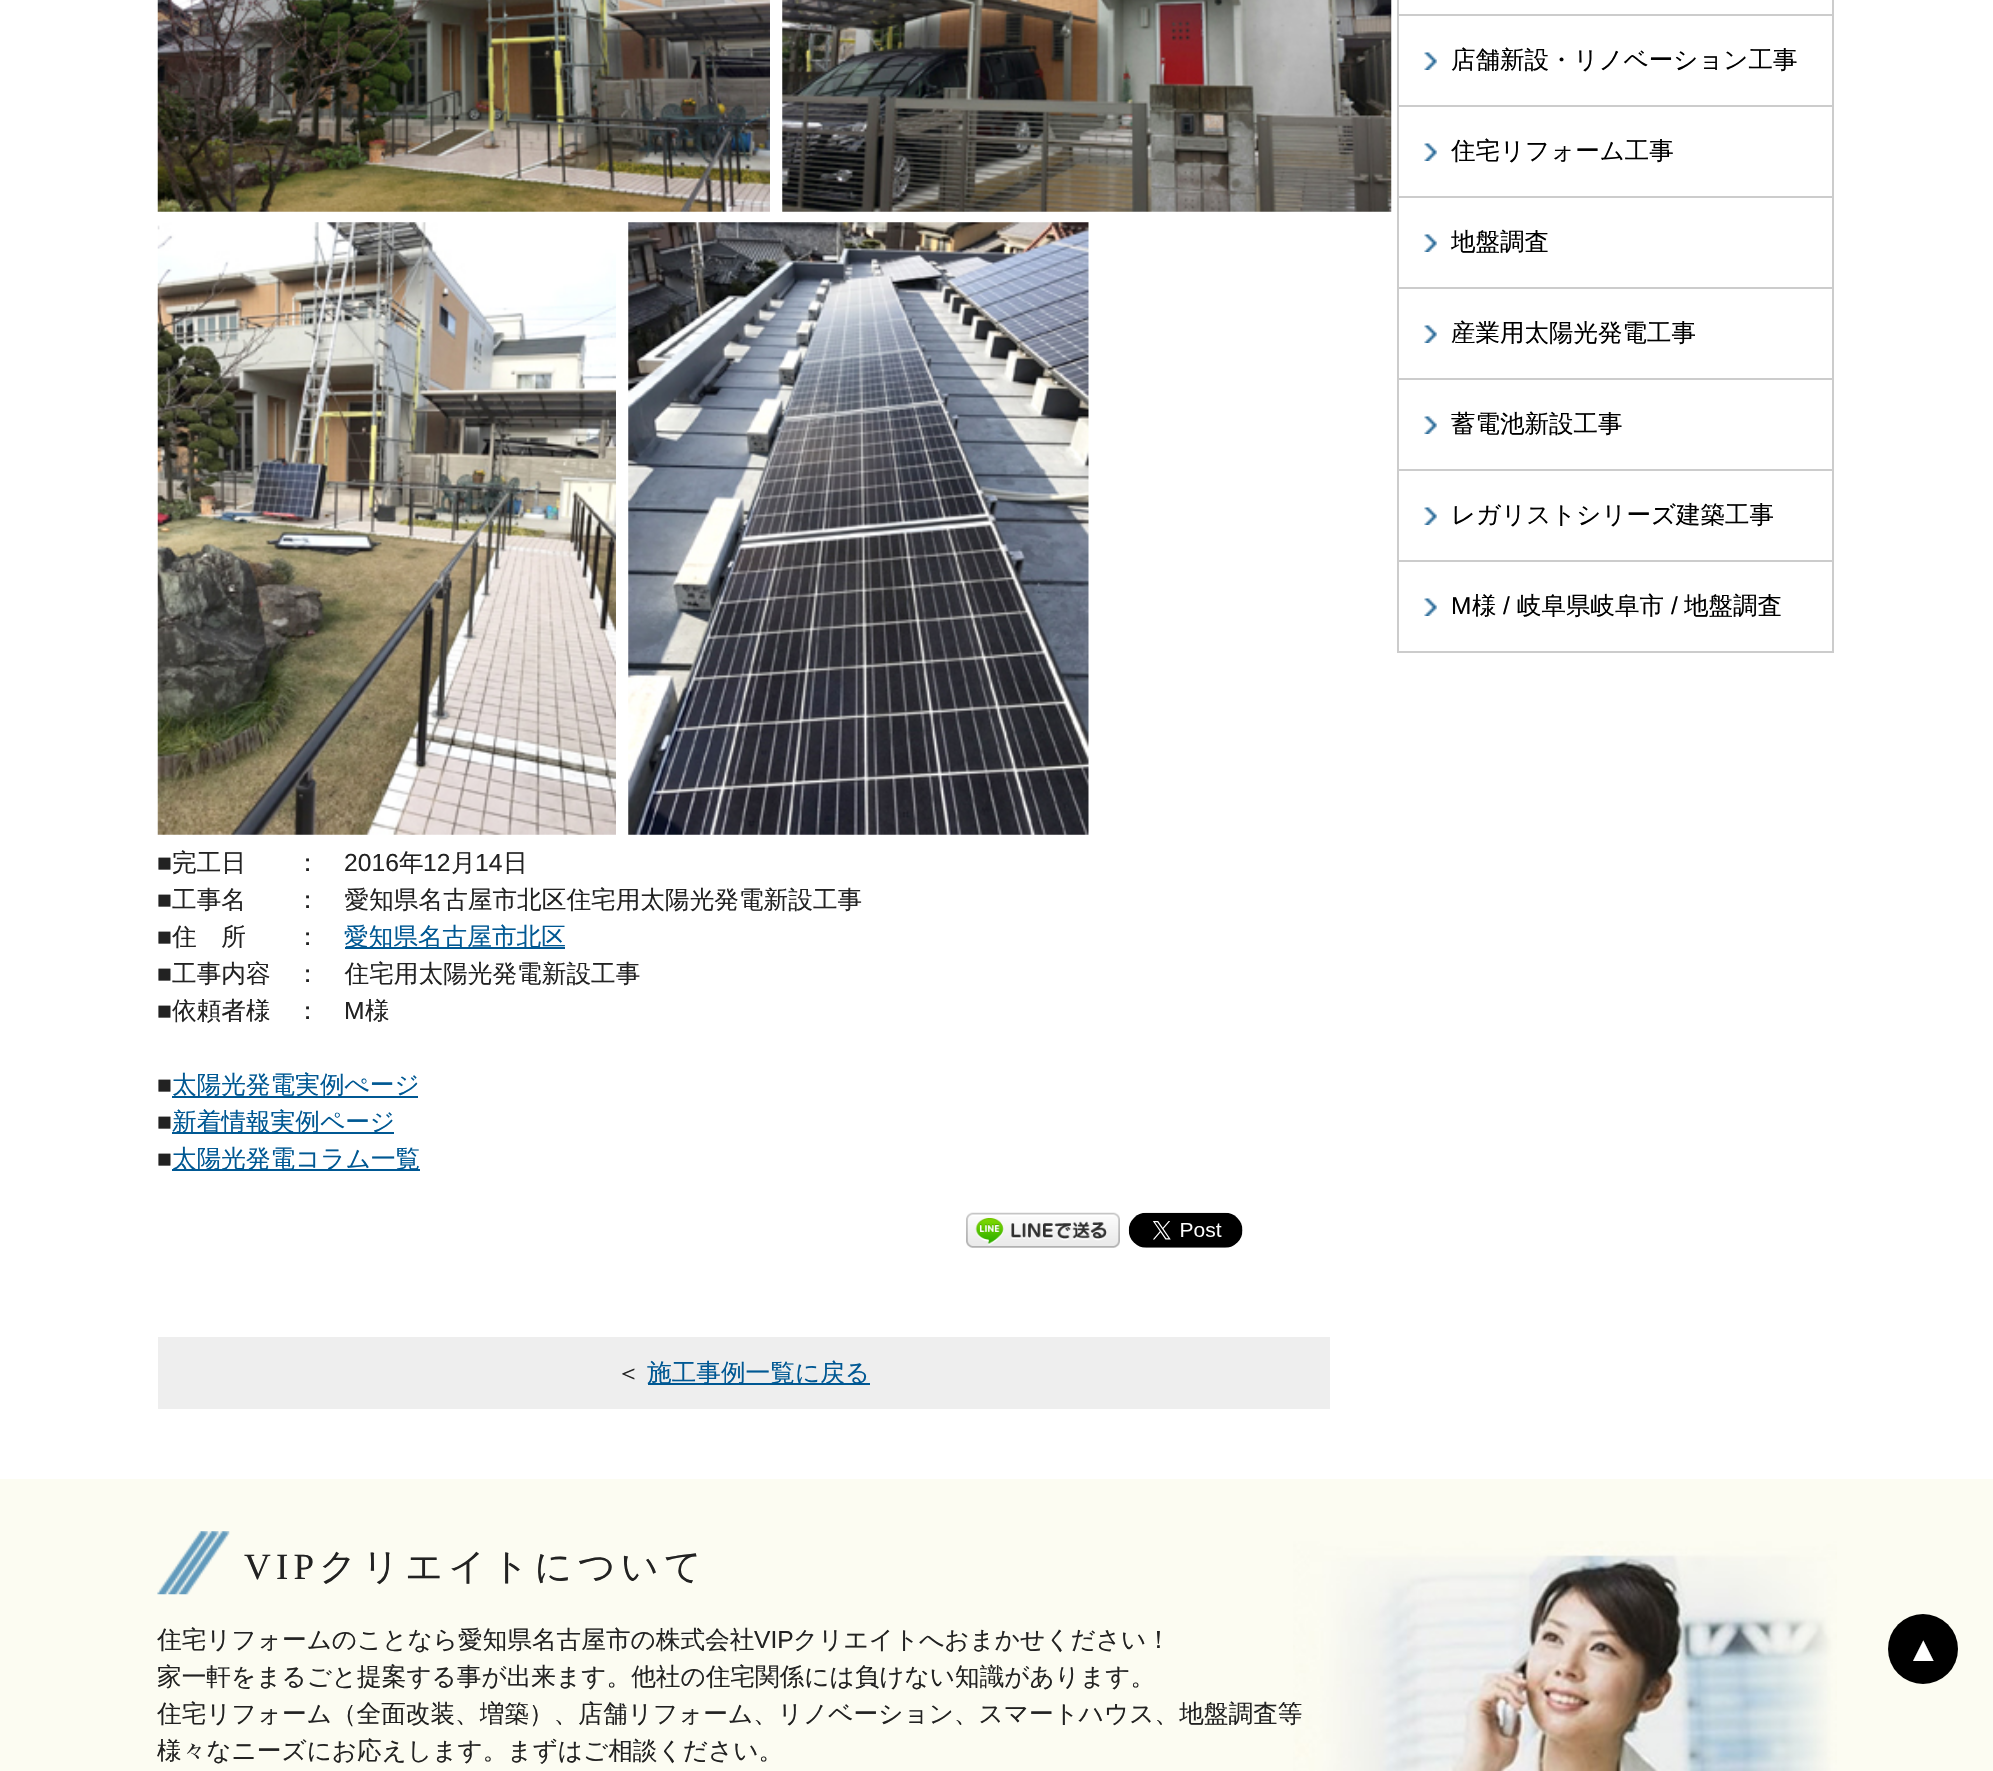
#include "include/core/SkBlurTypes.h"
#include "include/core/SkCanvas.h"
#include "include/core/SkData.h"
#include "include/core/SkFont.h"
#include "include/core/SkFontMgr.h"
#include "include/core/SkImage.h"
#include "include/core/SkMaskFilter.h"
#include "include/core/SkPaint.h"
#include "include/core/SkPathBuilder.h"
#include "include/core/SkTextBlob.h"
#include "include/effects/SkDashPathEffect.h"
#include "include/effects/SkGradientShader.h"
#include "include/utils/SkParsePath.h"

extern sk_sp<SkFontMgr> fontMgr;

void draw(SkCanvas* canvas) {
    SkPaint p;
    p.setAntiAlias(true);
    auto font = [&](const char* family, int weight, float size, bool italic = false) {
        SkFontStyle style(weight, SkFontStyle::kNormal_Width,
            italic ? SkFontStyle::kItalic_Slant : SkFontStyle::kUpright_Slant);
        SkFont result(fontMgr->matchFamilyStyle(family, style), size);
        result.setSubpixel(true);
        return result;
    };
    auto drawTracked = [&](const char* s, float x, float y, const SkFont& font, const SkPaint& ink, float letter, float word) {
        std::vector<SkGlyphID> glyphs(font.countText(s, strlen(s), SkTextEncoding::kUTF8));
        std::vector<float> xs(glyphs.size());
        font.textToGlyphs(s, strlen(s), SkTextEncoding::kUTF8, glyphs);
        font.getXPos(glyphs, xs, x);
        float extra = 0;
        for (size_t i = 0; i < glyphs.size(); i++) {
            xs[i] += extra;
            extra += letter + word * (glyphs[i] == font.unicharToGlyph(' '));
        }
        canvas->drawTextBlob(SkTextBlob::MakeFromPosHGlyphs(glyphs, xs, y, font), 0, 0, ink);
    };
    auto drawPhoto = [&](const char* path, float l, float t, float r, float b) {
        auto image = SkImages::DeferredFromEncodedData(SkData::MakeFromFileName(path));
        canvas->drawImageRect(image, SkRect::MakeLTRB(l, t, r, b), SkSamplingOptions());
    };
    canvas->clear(0xFFFFFFFF);
    {
        const struct { float l, t, r, b; SkColor color; } items[] = {
            {1832, 0, 1834, 653, 0xFFCCCCCC},
            {1397, 14, 1834, 16, 0xFFCCCCCC},
            {1397, 0, 1399, 16, 0xFFCCCCCC},
            {1397, 105, 1834, 107, 0xFFCCCCCC},
            {1397, 16, 1399, 107, 0xFFCCCCCC},
        };
        for (auto [l, t, r, b, color] : items) {
            p.setColor(color);
            canvas->drawRect(SkRect::MakeLTRB(l, t, r, b), p);
        }
    }
    drawPhoto("media/1.png", 1424, 52, 1437, 70);
    auto font1 = font("WenQuanYi Zen Hei", 500, 24.5f);
    p.setColor(0xFF000000);
    canvas->drawString("店舗新設・リノベーション工事", 1451, 68, font1, p);
    p.setColor(0xFFCCCCCC);
    canvas->drawRect(SkRect::MakeLTRB(1397, 196, 1834, 198), p);
    canvas->drawRect(SkRect::MakeLTRB(1397, 107, 1399, 198), p);
    drawPhoto("media/1.png", 1424, 143, 1437, 161);
    p.setColor(0xFF000000);
    canvas->drawString("住宅リフォーム工事", 1451, 159, font1, p);
    p.setColor(0xFFCCCCCC);
    canvas->drawRect(SkRect::MakeLTRB(1397, 287, 1834, 289), p);
    canvas->drawRect(SkRect::MakeLTRB(1397, 198, 1399, 289), p);
    drawPhoto("media/1.png", 1424, 234, 1437, 252);
    p.setColor(0xFF000000);
    canvas->drawString("地盤調査", 1451, 250, font1, p);
    p.setColor(0xFFCCCCCC);
    canvas->drawRect(SkRect::MakeLTRB(1397, 378, 1834, 380), p);
    canvas->drawRect(SkRect::MakeLTRB(1397, 289, 1399, 380), p);
    drawPhoto("media/1.png", 1424, 325, 1437, 343);
    p.setColor(0xFF000000);
    canvas->drawString("産業用太陽光発電工事", 1451, 341, font1, p);
    p.setColor(0xFFCCCCCC);
    canvas->drawRect(SkRect::MakeLTRB(1397, 469, 1834, 471), p);
    canvas->drawRect(SkRect::MakeLTRB(1397, 380, 1399, 471), p);
    drawPhoto("media/1.png", 1424, 416, 1437, 434);
    p.setColor(0xFF000000);
    canvas->drawString("蓄電池新設工事", 1451, 432, font1, p);
    p.setColor(0xFFCCCCCC);
    canvas->drawRect(SkRect::MakeLTRB(1397, 560, 1834, 562), p);
    canvas->drawRect(SkRect::MakeLTRB(1397, 471, 1399, 562), p);
    drawPhoto("media/1.png", 1424, 507, 1437, 525);
    p.setColor(0xFF000000);
    canvas->drawString("レガリストシリーズ建築工事", 1451, 523, font1, p);
    p.setColor(0xFFCCCCCC);
    canvas->drawRect(SkRect::MakeLTRB(1397, 651, 1834, 653), p);
    canvas->drawRect(SkRect::MakeLTRB(1397, 562, 1399, 653), p);
    drawPhoto("media/1.png", 1424, 598, 1437, 616);
    auto font2 = font("Liberation Sans", 400, 24.5f);
    p.setColor(0xFF000000);
    canvas->drawString("M", 1451, 614, font2, p);
    canvas->drawString("様", 1472, 614, font1, p);
    canvas->drawString("/", 1503, 614, font2, p);
    canvas->drawString("岐阜県岐阜市", 1517, 614, font1, p);
    canvas->drawString("/", 1671, 614, font2, p);
    canvas->drawString("地盤調査", 1684, 614, font1, p);
    drawPhoto("media/2.png", 157, 0, 770, 212);
    drawPhoto("media/3.png", 782, 0, 1392, 212);
    drawPhoto("media/4.png", 157, 222, 616, 835);
    drawPhoto("media/5.png", 628, 222, 1089, 835);
    auto font3 = font("Liberation Sans", 400, 24.65f);
    p.setColor(0xFF222222);
    canvas->drawString("■", 157, 871, font3, p);
    auto font4 = font("WenQuanYi Zen Hei", 500, 24.65f);
    canvas->drawString("完工日　　：", 172, 871, font4, p);
    canvas->drawString("2016", 344, 871, font3, p);
    canvas->drawString("年", 399, 871, font4, p);
    canvas->drawString("12", 423, 871, font3, p);
    canvas->drawString("月", 451, 871, font4, p);
    canvas->drawString("14", 475, 871, font3, p);
    canvas->drawString("日", 503, 871, font4, p);
    canvas->drawString("■", 157, 908, font3, p);
    canvas->drawString("工事名　　：　愛知県名古屋市北区住宅用太陽光発電新設工事", 172, 908, font4, p);
    canvas->drawString("■", 157, 945, font3, p);
    canvas->drawString("住　所　　：", 172, 945, font4, p);
    p.setColor(0xFF005893);
    canvas->drawRect(SkRect::MakeLTRB(345, 947, 565, 949), p);
    canvas->drawString("愛知県名古屋市北区", 344, 945, font4, p);
    p.setColor(0xFF222222);
    canvas->drawString("■", 157, 982, font3, p);
    canvas->drawString("工事内容　：　住宅用太陽光発電新設工事", 172, 982, font4, p);
    canvas->drawString("■", 157, 1019, font3, p);
    canvas->drawString("依頼者様　：", 172, 1019, font4, p);
    canvas->drawString("M", 344, 1019, font3, p);
    canvas->drawString("様", 365, 1019, font4, p);
    canvas->drawString("■", 157, 1093, font3, p);
    p.setColor(0xFF005893);
    canvas->drawRect(SkRect::MakeLTRB(172, 1096, 418, 1098), p);
    canvas->drawString("太陽光発電実例ぺージ", 172, 1093, font4, p);
    p.setColor(0xFF222222);
    canvas->drawString("■", 157, 1130, font3, p);
    p.setColor(0xFF005893);
    canvas->drawRect(SkRect::MakeLTRB(172, 1132, 394, 1134), p);
    canvas->drawString("新着情報実例ページ", 172, 1130, font4, p);
    p.setColor(0xFF222222);
    canvas->drawString("■", 157, 1167, font3, p);
    p.setColor(0xFF005893);
    canvas->drawRect(SkRect::MakeLTRB(172, 1169, 420, 1171), p);
    canvas->drawString("太陽光発電コラム一覧", 172, 1167, font4, p);
    drawPhoto("media/6.png", 966, 1212, 1120, 1248);
    drawPhoto("media/7.png", 1128, 1212, 1243, 1248);
    p.setColor(0xFFEEEEEE);
    canvas->drawRect(SkRect::MakeLTRB(158, 1337, 1330, 1409), p);
    p.setColor(0xFF222222);
    canvas->drawString("＜", 616, 1381, font4, p);
    p.setColor(0xFF005893);
    canvas->drawRect(SkRect::MakeLTRB(648, 1383, 870, 1385), p);
    canvas->drawString("施工事例一覧に戻る", 647, 1381, font4, p);
    p.setColor(0xFFFCFCF2);
    canvas->drawRect(SkRect::MakeLTRB(0, 1479, 1993, 1771), p);
    drawPhoto("media/8.png", 1293, 1541, 1837, 1771);
    drawPhoto("media/9.png", 157, 1531, 230, 1595);
    auto font5 = font("Liberation Serif", 400, 37);
    p.setColor(0xFF222222);
    drawTracked("VIP", 244, 1579, font5, p, 5.25f, 0);
    auto font6 = font("WenQuanYi Zen Hei", 500, 37);
    drawTracked("クリエイトについて", 319, 1579, font6, p, 5.25f, 0);
    canvas->drawString("住宅リフォームのことなら愛知県名古屋市の株式会社", 157, 1648, font4, p);
    canvas->drawString("VIP", 754, 1648, font3, p);
    {
        const struct { const char* s; float x, y; } items[] = {
            {"クリエイトへおまかせください！", 793, 1648},
            {"家一軒をまるごと提案する事が出来ます。他社の住宅関係には負けない知識があります。", 157, 1685},
            {"住宅リフォーム（全面改装、増築）、店舗リフォーム、リノベーション、スマートハウス、地盤調査等", 157, 1722},
            {"様々なニーズにお応えします。まずはご相談ください。", 157, 1759},
        };
        for (auto [s, x, y] : items) {
            canvas->drawString(s, x, y, font4, p);
        }
    }
    p.setColor(0xFF000000);
    canvas->drawCircle(1923, 1649, 35, p);
    auto font7 = font("Liberation Sans", 400, 35);
    p.setColor(0xFFFFFFFF);
    canvas->drawString("▲", 1906, 1661, font7, p);
}
